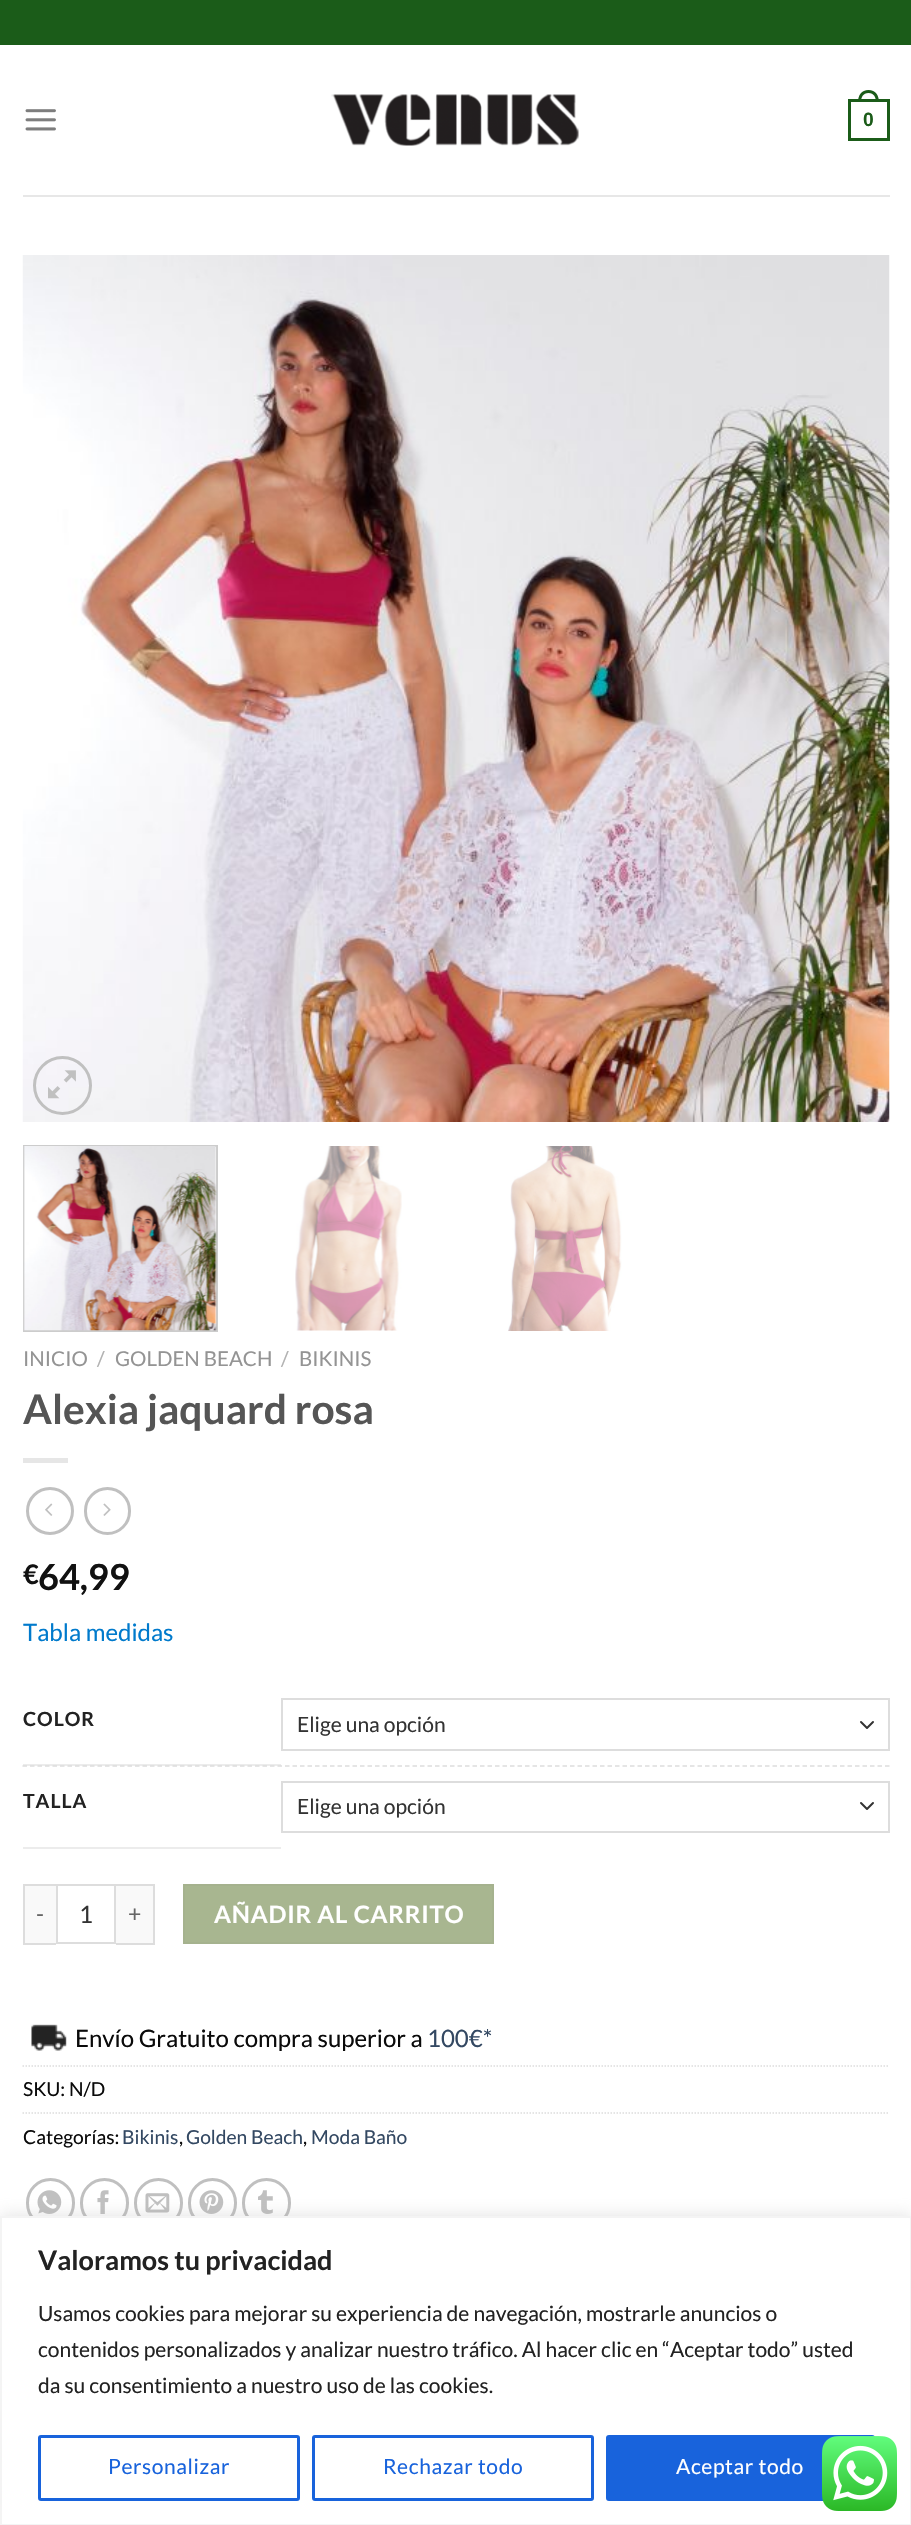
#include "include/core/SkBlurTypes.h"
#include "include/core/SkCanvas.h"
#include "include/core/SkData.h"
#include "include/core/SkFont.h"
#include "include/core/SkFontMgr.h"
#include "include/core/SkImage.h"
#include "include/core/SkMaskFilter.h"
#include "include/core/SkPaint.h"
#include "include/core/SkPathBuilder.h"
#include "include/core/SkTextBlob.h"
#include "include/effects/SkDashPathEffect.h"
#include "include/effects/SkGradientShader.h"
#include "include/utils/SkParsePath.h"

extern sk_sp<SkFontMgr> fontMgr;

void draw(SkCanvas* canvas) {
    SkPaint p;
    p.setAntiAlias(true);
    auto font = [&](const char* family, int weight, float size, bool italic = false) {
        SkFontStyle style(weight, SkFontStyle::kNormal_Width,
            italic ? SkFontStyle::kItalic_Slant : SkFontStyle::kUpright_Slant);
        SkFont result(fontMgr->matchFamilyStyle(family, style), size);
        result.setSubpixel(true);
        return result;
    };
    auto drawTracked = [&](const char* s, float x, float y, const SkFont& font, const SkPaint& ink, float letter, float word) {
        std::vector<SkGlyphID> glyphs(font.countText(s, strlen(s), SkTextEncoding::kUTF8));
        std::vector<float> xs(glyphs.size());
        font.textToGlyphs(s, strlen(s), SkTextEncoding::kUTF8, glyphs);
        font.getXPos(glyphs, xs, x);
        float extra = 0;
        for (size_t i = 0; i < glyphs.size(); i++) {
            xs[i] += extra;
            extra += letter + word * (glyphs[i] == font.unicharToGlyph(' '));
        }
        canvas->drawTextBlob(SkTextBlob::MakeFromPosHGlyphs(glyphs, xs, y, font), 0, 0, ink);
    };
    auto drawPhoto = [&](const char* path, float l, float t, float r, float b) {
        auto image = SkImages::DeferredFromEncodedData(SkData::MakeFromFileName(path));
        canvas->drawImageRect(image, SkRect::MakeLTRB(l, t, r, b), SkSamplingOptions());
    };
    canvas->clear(0xFFFFFFFF);
    p.setColor(0xFF1B5C19);
    canvas->drawRect(SkRect::MakeLTRB(0, 0, 911, 45), p);
    drawPhoto("media/1.png", 25, 109, 56, 131);
    drawPhoto("media/2.png", 331, 94, 579, 146);
    p.setStyle(SkPaint::kStroke_Style);
    p.setStrokeWidth(3);
    canvas->drawRect(SkRect::MakeLTRB(849.5f, 100.5f, 888.5f, 139.5f), p);
    p.setStyle(SkPaint::kFill_Style);
    canvas->drawPath(SkPathBuilder(SkPathFillType::kEvenOdd).moveTo(868.5f, 90).cubicTo(875.5f, 90, 879, 95.5f, 879, 102).lineTo(858, 102).cubicTo(858, 95.5f, 861.5f, 90, 868.5f, 90).close().moveTo(868.5f, 93).cubicTo(874, 93, 876, 97.5f, 876, 102).lineTo(861, 102).cubicTo(861, 97.5f, 863, 93, 868.5f, 93).close().detach(), p);
    auto font1 = font("Liberation Sans", 700, 19.25f);
    canvas->drawString("0", 863, 126, font1, p);
    p.setColor(0xFFE7E7E7);
    canvas->drawRect(SkRect::MakeLTRB(23, 195, 890, 197), p);
    drawPhoto("media/3.png", 22, 255, 890, 1122);
    p.setStyle(SkPaint::kStroke_Style);
    p.setColor(0xFFC0C0C0);
    canvas->drawCircle(62.5f, 1085.5f, 28, p);
    drawPhoto("media/4.png", 48, 1070, 76, 1099);
    p.setStrokeWidth(2);
    p.setColor(0xFFCCCCCC);
    canvas->drawRect(SkRect::MakeLTRB(24, 1146, 217, 1331), p);
    drawPhoto("media/5.png", 23, 1146, 217, 1331);
    drawPhoto("media/6.png", 295, 1146, 402, 1331);
    drawPhoto("media/7.png", 508, 1146, 622, 1331);
    auto font2 = font("Lato", 400, 20.5f);
    p.setStyle(SkPaint::kFill_Style);
    p.setColor(0xFF949494);
    canvas->drawString("INICIO", 23, 1366, font2, p);
    p.setColor(0xFFB2B2B2);
    canvas->drawString("/", 97, 1366, font2, p);
    p.setColor(0xFF949494);
    canvas->drawString("GOLDEN BEACH", 115, 1366, font2, p);
    p.setColor(0xFFB2B2B2);
    canvas->drawString("/", 281, 1366, font2, p);
    p.setColor(0xFF949494);
    canvas->drawString("BIKINIS", 299, 1366, font2, p);
    auto font3 = font("Lato", 700, 40.75f);
    p.setColor(0xFF555555);
    canvas->drawString("Alexia jaquard rosa", 23, 1424, font3, p);
    p.setColor(0xFFE6E6E6);
    canvas->drawRect(SkRect::MakeLTRB(23, 1458, 68, 1463), p);
    p.setStyle(SkPaint::kStroke_Style);
    p.setStrokeWidth(3);
    p.setColor(0xFFC0C0C0);
    canvas->drawCircle(50, 1511, 22.5f, p);
    drawPhoto("media/8.png", 45, 1503, 53, 1516);
    canvas->drawRoundRect(SkRect::MakeLTRB(85.5f, 1488.5f, 129.5f, 1533.5f), 22, 22, p);
    drawPhoto("media/9.png", 103, 1503, 111, 1516);
    auto font4 = font("Lato", 700, 27);
    p.setStyle(SkPaint::kFill_Style);
    p.setColor(0xFF111111);
    canvas->drawString("€", 23, 1584, font4, p);
    auto font5 = font("Lato", 700, 36);
    canvas->drawString("64,99", 38, 1590, font5, p);
    auto font6 = font("Lato", 400, 24);
    p.setColor(0xFF007ACC);
    canvas->drawString("Tabla medidas", 23, 1641, font6, p);
    p.setColor(0xFFECECEC);
    canvas->drawRect(SkRect::MakeLTRB(23, 1764, 281, 1766), p);
    auto font7 = font("Lato", 700, 19.5f);
    p.setColor(0xFF222222);
    drawTracked("COLOR", 23, 1726, font7, p, 1, 0);
    p.setStyle(SkPaint::kStroke_Style);
    p.setStrokeWidth(2);
    p.setStrokeCap(SkPaint::kRound_Cap);
    p.setStrokeJoin(SkPaint::kRound_Join);
    p.setColor(0xFF333333);
    canvas->drawPath(SkPathBuilder().moveTo(861, 1722).lineTo(867, 1728).lineTo(873, 1722).detach(), p);
    p.setStrokeCap(SkPaint::kButt_Cap);
    p.setStrokeJoin(SkPaint::kMiter_Join);
    p.setColor(0xFFDDDDDD);
    canvas->drawRect(SkRect::MakeLTRB(282, 1699, 889, 1750), p);
    auto font8 = font("Lato", 400, 21);
    p.setStyle(SkPaint::kFill_Style);
    p.setColor(0xFF333333);
    canvas->drawString("Elige una opción", 297, 1732, font8, p);
    p.setStyle(SkPaint::kStroke_Style);
    p.setStrokeWidth(1.5f);
    p.setColor(0xFFDDDDDD);
    p.setPathEffect(SkDashPathEffect::Make({{4.5f, 3}}, 0));
    canvas->drawPath(SkPathBuilder().moveTo(22.5f, 1766).lineTo(889.5f, 1766).detach(), p);
    p.setPathEffect(nullptr);
    p.setStyle(SkPaint::kFill_Style);
    p.setColor(0xFFECECEC);
    canvas->drawRect(SkRect::MakeLTRB(23, 1847, 281, 1849), p);
    p.setColor(0xFF222222);
    drawTracked("TALLA", 23, 1808, font7, p, 1, 0);
    p.setStyle(SkPaint::kStroke_Style);
    p.setStrokeWidth(2);
    p.setStrokeCap(SkPaint::kRound_Cap);
    p.setStrokeJoin(SkPaint::kRound_Join);
    p.setColor(0xFF333333);
    canvas->drawPath(SkPathBuilder().moveTo(861, 1803).lineTo(867, 1809).lineTo(873, 1803).detach(), p);
    p.setStrokeCap(SkPaint::kButt_Cap);
    p.setStrokeJoin(SkPaint::kMiter_Join);
    p.setColor(0xFFDDDDDD);
    canvas->drawRect(SkRect::MakeLTRB(282, 1782, 889, 1832), p);
    p.setStyle(SkPaint::kFill_Style);
    p.setColor(0xFF333333);
    canvas->drawString("Elige una opción", 297, 1814, font8, p);
    {
        const struct { float l, t, r, b; SkColor color; } items[] = {
            {25, 1886, 56, 1943, 0xFFF9F9F9},
            {23, 1884, 56, 1886, 0xFFDDDDDD},
            {23, 1943, 56, 1945, 0xFFDDDDDD},
            {23, 1884, 25, 1944, 0xFFDDDDDD},
        };
        for (auto [l, t, r, b, color] : items) {
            p.setColor(color);
            canvas->drawRect(SkRect::MakeLTRB(l, t, r, b), p);
        }
    }
    auto font9 = font("Lato", 400, 23);
    p.setColor(0xFF666666);
    drawTracked("-", 36, 1922, font9, p, 1, 0);
    p.setStyle(SkPaint::kStroke_Style);
    p.setColor(0xFFDDDDDD);
    canvas->drawRect(SkRect::MakeLTRB(57, 1885, 115, 1943), p);
    p.setStyle(SkPaint::kFill_Style);
    p.setColor(0xFF333333);
    canvas->drawString("1", 79, 1923, font6, p);
    {
        const struct { float l, t, r, b; SkColor color; } items[] = {
            {116, 1886, 153, 1943, 0xFFF9F9F9},
            {116, 1884, 155, 1886, 0xFFDDDDDD},
            {153, 1884, 155, 1944, 0xFFDDDDDD},
            {116, 1943, 155, 1945, 0xFFDDDDDD},
        };
        for (auto [l, t, r, b, color] : items) {
            p.setColor(color);
            canvas->drawRect(SkRect::MakeLTRB(l, t, r, b), p);
        }
    }
    p.setColor(0xFF666666);
    drawTracked("+", 128, 1922, font9, p, 1, 0);
    p.setColor(0xFFA8B690);
    canvas->drawRect(SkRect::MakeLTRB(184, 1885, 493, 1943), p);
    p.setStyle(SkPaint::kStroke_Style);
    p.setColor(0xFFA5B28E);
    canvas->drawRect(SkRect::MakeLTRB(184, 1885, 493, 1943), p);
    auto font10 = font("Lato", 700, 24);
    p.setStyle(SkPaint::kFill_Style);
    p.setColor(0xFFFFFFFF);
    drawTracked("AÑADIR AL CARRITO", 214, 1923, font10, p, 0.75f, 0);
    drawPhoto("media/10.png", 31, 2024, 67, 2051);
    p.setColor(0xFF0A0A0A);
    canvas->drawString("Envío Gratuito compra superior a", 75, 2047, font6, p);
    p.setColor(0xFF334862);
    canvas->drawString("100€*", 427, 2047, font6, p);
    p.setStyle(SkPaint::kStroke_Style);
    p.setStrokeWidth(1.5f);
    p.setColor(0xFFDDDDDD);
    p.setPathEffect(SkDashPathEffect::Make({{1.5f, 1.5f}}, 0));
    canvas->drawPath(SkPathBuilder().moveTo(22.5f, 2066).lineTo(889.5f, 2066).detach(), p);
    p.setPathEffect(nullptr);
    auto font11 = font("Lato", 400, 19.25f);
    p.setStyle(SkPaint::kFill_Style);
    p.setColor(0xFF0A0A0A);
    canvas->drawString("SKU: N/D", 23, 2096, font11, p);
    p.setStyle(SkPaint::kStroke_Style);
    p.setColor(0xFFDDDDDD);
    p.setPathEffect(SkDashPathEffect::Make({{1.5f, 1.5f}}, 0));
    canvas->drawPath(SkPathBuilder().moveTo(22.5f, 2113).lineTo(889.5f, 2113).detach(), p);
    p.setPathEffect(nullptr);
    p.setStyle(SkPaint::kFill_Style);
    p.setColor(0xFF0A0A0A);
    canvas->drawString("Categorías:", 23, 2144, font11, p);
    p.setColor(0xFF334862);
    canvas->drawString("Bikinis", 122, 2144, font11, p);
    p.setColor(0xFF0A0A0A);
    canvas->drawString(",", 179, 2144, font11, p);
    p.setColor(0xFF334862);
    canvas->drawString("Golden Beach", 186, 2144, font11, p);
    p.setColor(0xFF0A0A0A);
    canvas->drawString(",", 303, 2144, font11, p);
    p.setColor(0xFF334862);
    canvas->drawString("Moda Baño", 311, 2144, font11, p);
    p.setStyle(SkPaint::kStroke_Style);
    p.setStrokeWidth(3);
    p.setColor(0xFFC0C0C0);
    canvas->drawRoundRect(SkRect::MakeLTRB(27.5f, 2179.5f, 73.5f, 2226.5f), 23, 23, p);
    drawPhoto("media/11.png", 37, 2190, 62, 2214);
    canvas->drawRoundRect(SkRect::MakeLTRB(81.5f, 2179.5f, 127.5f, 2226.5f), 23, 23, p);
    drawPhoto("media/12.png", 97, 2190, 109, 2214);
    canvas->drawRoundRect(SkRect::MakeLTRB(135.5f, 2179.5f, 181.5f, 2226.5f), 23, 23, p);
    drawPhoto("media/13.png", 145, 2193, 170, 2213);
    canvas->drawRoundRect(SkRect::MakeLTRB(189.5f, 2179.5f, 235.5f, 2226.5f), 23, 23, p);
    drawPhoto("media/14.png", 199, 2190, 224, 2214);
    canvas->drawRoundRect(SkRect::MakeLTRB(243.5f, 2179.5f, 289.5f, 2226.5f), 23, 23, p);
    drawPhoto("media/15.png", 258, 2190, 273, 2214);
    p.setStyle(SkPaint::kFill_Style);
    p.setColor(0x4DACABAB);
    p.setMaskFilter(SkMaskFilter::MakeBlur(kNormal_SkBlurStyle, 7.5f));
    canvas->drawRect(SkRect::MakeLTRB(0, 2214, 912, 2525), p);
    p.setMaskFilter(nullptr);
    p.setColor(0xFFFFFFFF);
    canvas->drawRect(SkRect::MakeLTRB(1, 2217, 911, 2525), p);
    p.setStyle(SkPaint::kStroke_Style);
    p.setStrokeWidth(2);
    p.setColor(0xFFF4F4F4);
    canvas->drawRect(SkRect::MakeLTRB(1, 2217, 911, 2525), p);
    p.setStyle(SkPaint::kFill_Style);
    p.setColor(0xFF222222);
    canvas->drawString("Valoramos tu privacidad", 38, 2270, font4, p);
    {
        const struct { const char* s; float x, y; } items[] = {
            {"Usamos cookies para mejorar su experiencia de navegación, mostrarle anuncios o", 38, 2321},
            {"contenidos personalizados y analizar nuestro tráfico. Al hacer clic en “Aceptar todo” usted", 38, 2357},
            {"da su consentimiento a nuestro uso de las cookies.", 38, 2393},
        };
        for (auto [s, x, y] : items) {
            canvas->drawString(s, x, y, font8, p);
        }
    }
    p.setStyle(SkPaint::kStroke_Style);
    p.setStrokeWidth(3);
    p.setColor(0xFF1863DC);
    canvas->drawRoundRect(SkRect::MakeLTRB(39.5f, 2436.5f, 298.5f, 2499.5f), 1.5f, 1.5f, p);
    p.setStyle(SkPaint::kFill_Style);
    drawTracked("Personalizar", 108, 2474, font8, p, 0.6f, 0);
    p.setStyle(SkPaint::kStroke_Style);
    canvas->drawRoundRect(SkRect::MakeLTRB(313.5f, 2436.5f, 592.5f, 2499.5f), 1.5f, 1.5f, p);
    p.setStyle(SkPaint::kFill_Style);
    drawTracked("Rechazar todo", 383, 2474, font8, p, 0.6f, 0);
    canvas->drawRoundRect(SkRect::MakeLTRB(607.5f, 2436.5f, 873.5f, 2499.5f), 1.5f, 1.5f, p);
    p.setStyle(SkPaint::kStroke_Style);
    canvas->drawRoundRect(SkRect::MakeLTRB(607.5f, 2436.5f, 873.5f, 2499.5f), 1.5f, 1.5f, p);
    p.setStyle(SkPaint::kFill_Style);
    p.setColor(0xFFFFFFFF);
    drawTracked("Aceptar todo", 676, 2474, font8, p, 0.6f, 0);
    drawPhoto("media/16.png", 822, 2436, 897, 2511);
}
